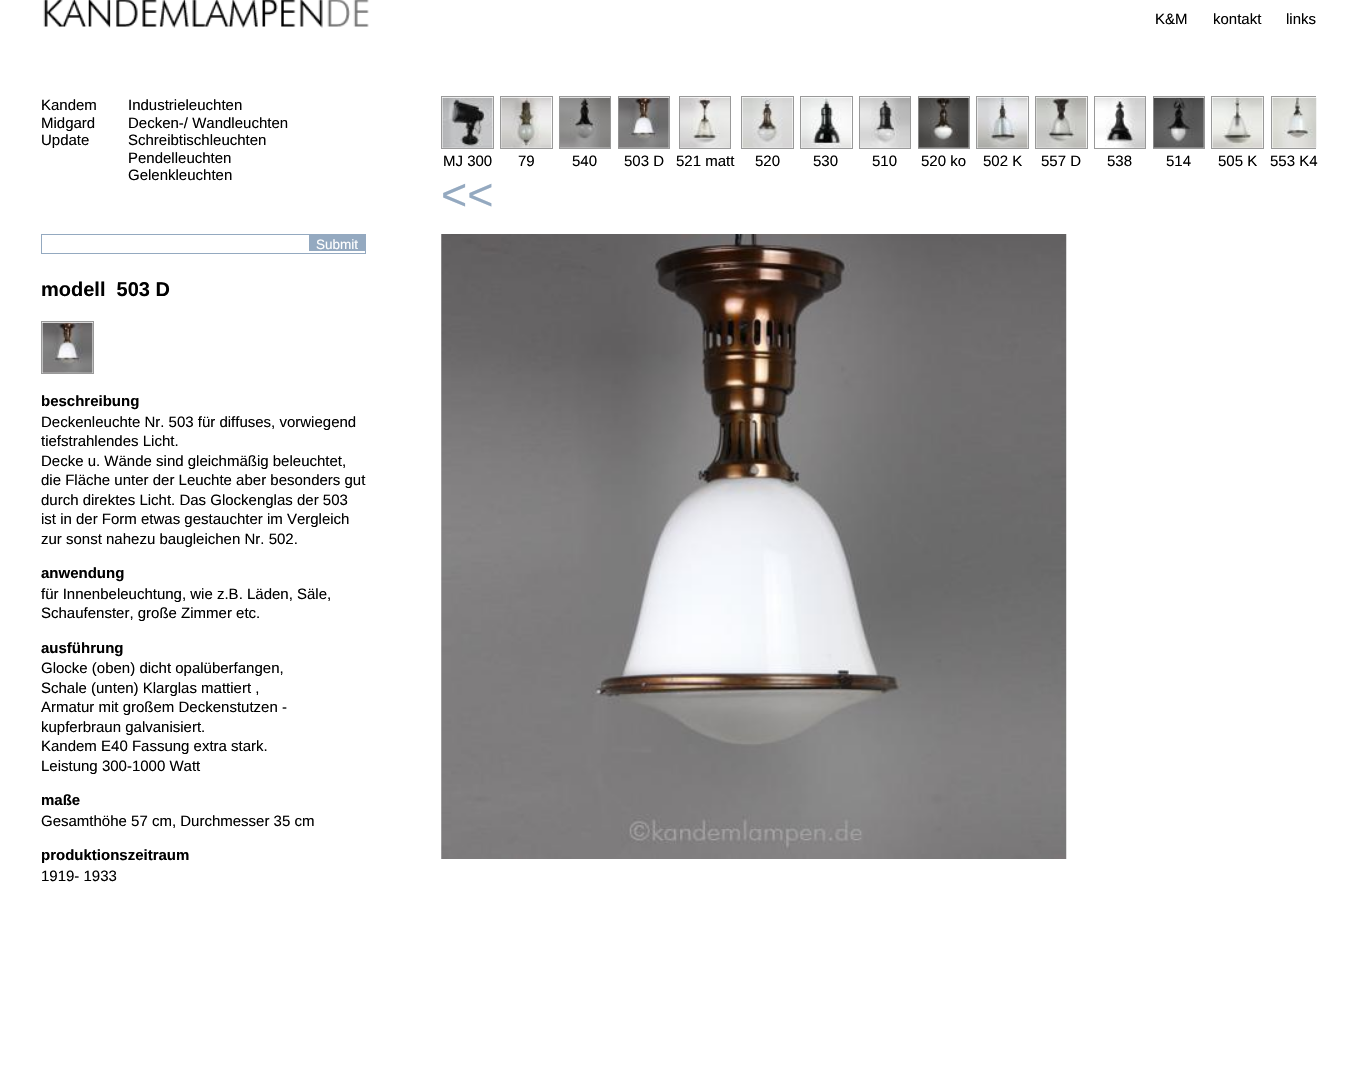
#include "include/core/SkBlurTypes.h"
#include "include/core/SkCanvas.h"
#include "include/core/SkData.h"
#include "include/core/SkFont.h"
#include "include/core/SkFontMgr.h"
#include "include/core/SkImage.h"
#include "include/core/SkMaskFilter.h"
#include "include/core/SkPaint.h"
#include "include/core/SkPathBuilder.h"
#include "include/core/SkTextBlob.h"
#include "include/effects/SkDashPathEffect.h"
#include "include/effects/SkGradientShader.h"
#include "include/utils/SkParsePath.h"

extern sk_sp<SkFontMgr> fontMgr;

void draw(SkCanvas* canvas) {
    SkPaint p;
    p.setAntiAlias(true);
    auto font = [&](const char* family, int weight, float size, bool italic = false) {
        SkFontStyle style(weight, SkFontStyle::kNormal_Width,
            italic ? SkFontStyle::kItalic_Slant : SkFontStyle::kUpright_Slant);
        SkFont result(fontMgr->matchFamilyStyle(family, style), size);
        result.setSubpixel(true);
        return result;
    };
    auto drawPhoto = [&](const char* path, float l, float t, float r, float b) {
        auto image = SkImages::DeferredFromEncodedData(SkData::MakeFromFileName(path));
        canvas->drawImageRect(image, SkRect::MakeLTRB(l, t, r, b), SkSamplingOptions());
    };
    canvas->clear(0xFFFFFFFF);
    drawPhoto("media/1.png", 43, 0, 369, 28);
    auto font1 = font("Liberation Sans", 400, 15);
    p.setColor(0xFF000000);
    {
        const struct { const char* s; float x, y; } items[] = {
            {"K&M", 1155, 24},
            {"kontakt", 1213, 24},
            {"links", 1286, 24},
            {"Kandem", 41, 110},
            {"Midgard", 41, 128},
            {"Update", 41, 145},
            {"Industrieleuchten", 128, 110},
            {"Decken-/ Wandleuchten", 128, 128},
            {"Schreibtischleuchten", 128, 145},
            {"Pendelleuchten", 128, 163},
            {"Gelenkleuchten", 128, 180},
        };
        for (auto [s, x, y] : items) {
            canvas->drawString(s, x, y, font1, p);
        }
    }
    p.setStyle(SkPaint::kStroke_Style);
    p.setStrokeWidth(1);
    p.setColor(0xFF94A9C0);
    canvas->drawRect(SkRect::MakeLTRB(41.5f, 234.5f, 365.5f, 253.5f), p);
    p.setStyle(SkPaint::kFill_Style);
    canvas->drawRect(SkRect::MakeLTRB(309, 235, 365, 251), p);
    auto font2 = font("Liberation Sans", 400, 13.5f);
    p.setColor(0xFFFFFFFF);
    canvas->drawString("Submit", 316, 249, font2, p);
    auto font3 = font("Liberation Sans", 700, 20);
    p.setColor(0xFF000000);
    canvas->drawString("modell  503 D", 41, 296, font3, p);
    p.setStyle(SkPaint::kStroke_Style);
    p.setColor(0xFF999999);
    canvas->drawRect(SkRect::MakeLTRB(41.5f, 321.5f, 93.5f, 373.5f), p);
    drawPhoto("media/2.png", 42, 322, 93, 373);
    auto font4 = font("Liberation Sans", 700, 15);
    p.setStyle(SkPaint::kFill_Style);
    p.setColor(0xFF000000);
    canvas->drawString("beschreibung", 41, 406, font4, p);
    {
        const struct { const char* s; float x, y; } items[] = {
            {"Deckenleuchte Nr. 503 für diffuses, vorwiegend", 41, 427},
            {"tiefstrahlendes Licht.", 41, 446},
            {"Decke u. Wände sind gleichmäßig beleuchtet,", 41, 466},
            {"die Fläche unter der Leuchte aber besonders gut", 41, 485},
            {"durch direktes Licht. Das Glockenglas der 503", 41, 505},
            {"ist in der Form etwas gestauchter im Vergleich", 41, 524},
            {"zur sonst nahezu baugleichen Nr. 502.", 41, 544},
        };
        for (auto [s, x, y] : items) {
            canvas->drawString(s, x, y, font1, p);
        }
    }
    canvas->drawString("anwendung", 41, 578, font4, p);
    canvas->drawString("für Innenbeleuchtung, wie z.B. Läden, Säle,", 41, 599, font1, p);
    canvas->drawString("Schaufenster, große Zimmer etc.", 41, 618, font1, p);
    canvas->drawString("ausführung", 41, 653, font4, p);
    {
        const struct { const char* s; float x, y; } items[] = {
            {"Glocke (oben) dicht opalüberfangen,", 41, 673},
            {"Schale (unten) Klarglas mattiert ,", 41, 693},
            {"Armatur mit großem Deckenstutzen -", 41, 712},
            {"kupferbraun galvanisiert.", 41, 732},
            {"Kandem E40 Fassung extra stark.", 41, 751},
            {"Leistung 300-1000 Watt", 41, 771},
        };
        for (auto [s, x, y] : items) {
            canvas->drawString(s, x, y, font1, p);
        }
    }
    canvas->drawString("maße", 41, 805, font4, p);
    canvas->drawString("Gesamthöhe 57 cm, Durchmesser 35 cm", 41, 826, font1, p);
    canvas->drawString("produktionszeitraum", 41, 860, font4, p);
    canvas->drawString("1919- 1933", 41, 881, font1, p);
    p.setStyle(SkPaint::kStroke_Style);
    p.setColor(0xFF999999);
    canvas->drawRect(SkRect::MakeLTRB(441.5f, 96.5f, 493.5f, 148.5f), p);
    drawPhoto("media/3.png", 442, 97, 493, 148);
    p.setStyle(SkPaint::kFill_Style);
    p.setColor(0xFF000000);
    canvas->drawString("MJ 300", 443, 166, font1, p);
    p.setStyle(SkPaint::kStroke_Style);
    p.setColor(0xFF999999);
    canvas->drawRect(SkRect::MakeLTRB(500.5f, 96.5f, 552.5f, 148.5f), p);
    drawPhoto("media/4.png", 501, 97, 552, 148);
    p.setStyle(SkPaint::kFill_Style);
    p.setColor(0xFF000000);
    canvas->drawString("79", 518, 166, font1, p);
    p.setStyle(SkPaint::kStroke_Style);
    p.setColor(0xFF999999);
    canvas->drawRect(SkRect::MakeLTRB(559.5f, 96.5f, 610.5f, 148.5f), p);
    drawPhoto("media/5.png", 560, 97, 610, 148);
    p.setStyle(SkPaint::kFill_Style);
    p.setColor(0xFF000000);
    canvas->drawString("540", 572, 166, font1, p);
    p.setStyle(SkPaint::kStroke_Style);
    p.setColor(0xFF999999);
    canvas->drawRect(SkRect::MakeLTRB(618.5f, 96.5f, 669.5f, 148.5f), p);
    drawPhoto("media/6.png", 618, 97, 669, 148);
    p.setStyle(SkPaint::kFill_Style);
    p.setColor(0xFF000000);
    canvas->drawString("503 D", 624, 166, font1, p);
    p.setStyle(SkPaint::kStroke_Style);
    p.setColor(0xFF999999);
    canvas->drawRect(SkRect::MakeLTRB(679.5f, 96.5f, 730.5f, 148.5f), p);
    drawPhoto("media/7.png", 680, 97, 730, 148);
    p.setStyle(SkPaint::kFill_Style);
    p.setColor(0xFF000000);
    canvas->drawString("521 matt", 676, 166, font1, p);
    p.setStyle(SkPaint::kStroke_Style);
    p.setColor(0xFF999999);
    canvas->drawRect(SkRect::MakeLTRB(741.5f, 96.5f, 793.5f, 148.5f), p);
    drawPhoto("media/8.png", 742, 97, 793, 148);
    p.setStyle(SkPaint::kFill_Style);
    p.setColor(0xFF000000);
    canvas->drawString("520", 755, 166, font1, p);
    p.setStyle(SkPaint::kStroke_Style);
    p.setColor(0xFF999999);
    canvas->drawRect(SkRect::MakeLTRB(800.5f, 96.5f, 852.5f, 148.5f), p);
    drawPhoto("media/9.png", 801, 97, 852, 148);
    p.setStyle(SkPaint::kFill_Style);
    p.setColor(0xFF000000);
    canvas->drawString("530", 813, 166, font1, p);
    p.setStyle(SkPaint::kStroke_Style);
    p.setColor(0xFF999999);
    canvas->drawRect(SkRect::MakeLTRB(859.5f, 96.5f, 910.5f, 148.5f), p);
    drawPhoto("media/10.png", 860, 97, 910, 148);
    p.setStyle(SkPaint::kFill_Style);
    p.setColor(0xFF000000);
    canvas->drawString("510", 872, 166, font1, p);
    p.setStyle(SkPaint::kStroke_Style);
    p.setColor(0xFF999999);
    canvas->drawRect(SkRect::MakeLTRB(918.5f, 96.5f, 969.5f, 148.5f), p);
    drawPhoto("media/11.png", 918, 97, 969, 148);
    p.setStyle(SkPaint::kFill_Style);
    p.setColor(0xFF000000);
    canvas->drawString("520 ko", 921, 166, font1, p);
    p.setStyle(SkPaint::kStroke_Style);
    p.setColor(0xFF999999);
    canvas->drawRect(SkRect::MakeLTRB(976.5f, 96.5f, 1028.5f, 148.5f), p);
    drawPhoto("media/12.png", 977, 97, 1028, 148);
    p.setStyle(SkPaint::kFill_Style);
    p.setColor(0xFF000000);
    canvas->drawString("502 K", 983, 166, font1, p);
    p.setStyle(SkPaint::kStroke_Style);
    p.setColor(0xFF999999);
    canvas->drawRect(SkRect::MakeLTRB(1035.5f, 96.5f, 1087.5f, 148.5f), p);
    drawPhoto("media/13.png", 1036, 97, 1087, 148);
    p.setStyle(SkPaint::kFill_Style);
    p.setColor(0xFF000000);
    canvas->drawString("557 D", 1041, 166, font1, p);
    p.setStyle(SkPaint::kStroke_Style);
    p.setColor(0xFF999999);
    canvas->drawRect(SkRect::MakeLTRB(1094.5f, 96.5f, 1145.5f, 148.5f), p);
    drawPhoto("media/14.png", 1095, 97, 1145, 148);
    p.setStyle(SkPaint::kFill_Style);
    p.setColor(0xFF000000);
    canvas->drawString("538", 1107, 166, font1, p);
    p.setStyle(SkPaint::kStroke_Style);
    p.setColor(0xFF999999);
    canvas->drawRect(SkRect::MakeLTRB(1153.5f, 96.5f, 1204.5f, 148.5f), p);
    drawPhoto("media/15.png", 1153, 97, 1204, 148);
    p.setStyle(SkPaint::kFill_Style);
    p.setColor(0xFF000000);
    canvas->drawString("514", 1166, 166, font1, p);
    p.setStyle(SkPaint::kStroke_Style);
    p.setColor(0xFF999999);
    canvas->drawRect(SkRect::MakeLTRB(1211.5f, 96.5f, 1263.5f, 148.5f), p);
    drawPhoto("media/16.png", 1212, 97, 1263, 148);
    p.setStyle(SkPaint::kFill_Style);
    p.setColor(0xFF000000);
    canvas->drawString("505 K", 1218, 166, font1, p);
    canvas->save();
    canvas->clipRect(SkRect::MakeLTRB(441, 96, 1316, 174));
    p.setStyle(SkPaint::kStroke_Style);
    p.setColor(0xFF999999);
    canvas->drawRect(SkRect::MakeLTRB(1271.5f, 96.5f, 1323.5f, 148.5f), p);
    canvas->restore();
    drawPhoto("media/17.png", 1272, 97, 1317, 148);
    p.setStyle(SkPaint::kFill_Style);
    p.setColor(0xFF000000);
    canvas->drawString("553 K4", 1270, 166, font1, p);
    auto font5 = font("Liberation Sans", 400, 45);
    p.setColor(0xFF94A9C0);
    canvas->drawString("<<", 441, 210, font5, p);
    drawPhoto("media/18.png", 441, 234, 1067, 859);
}
